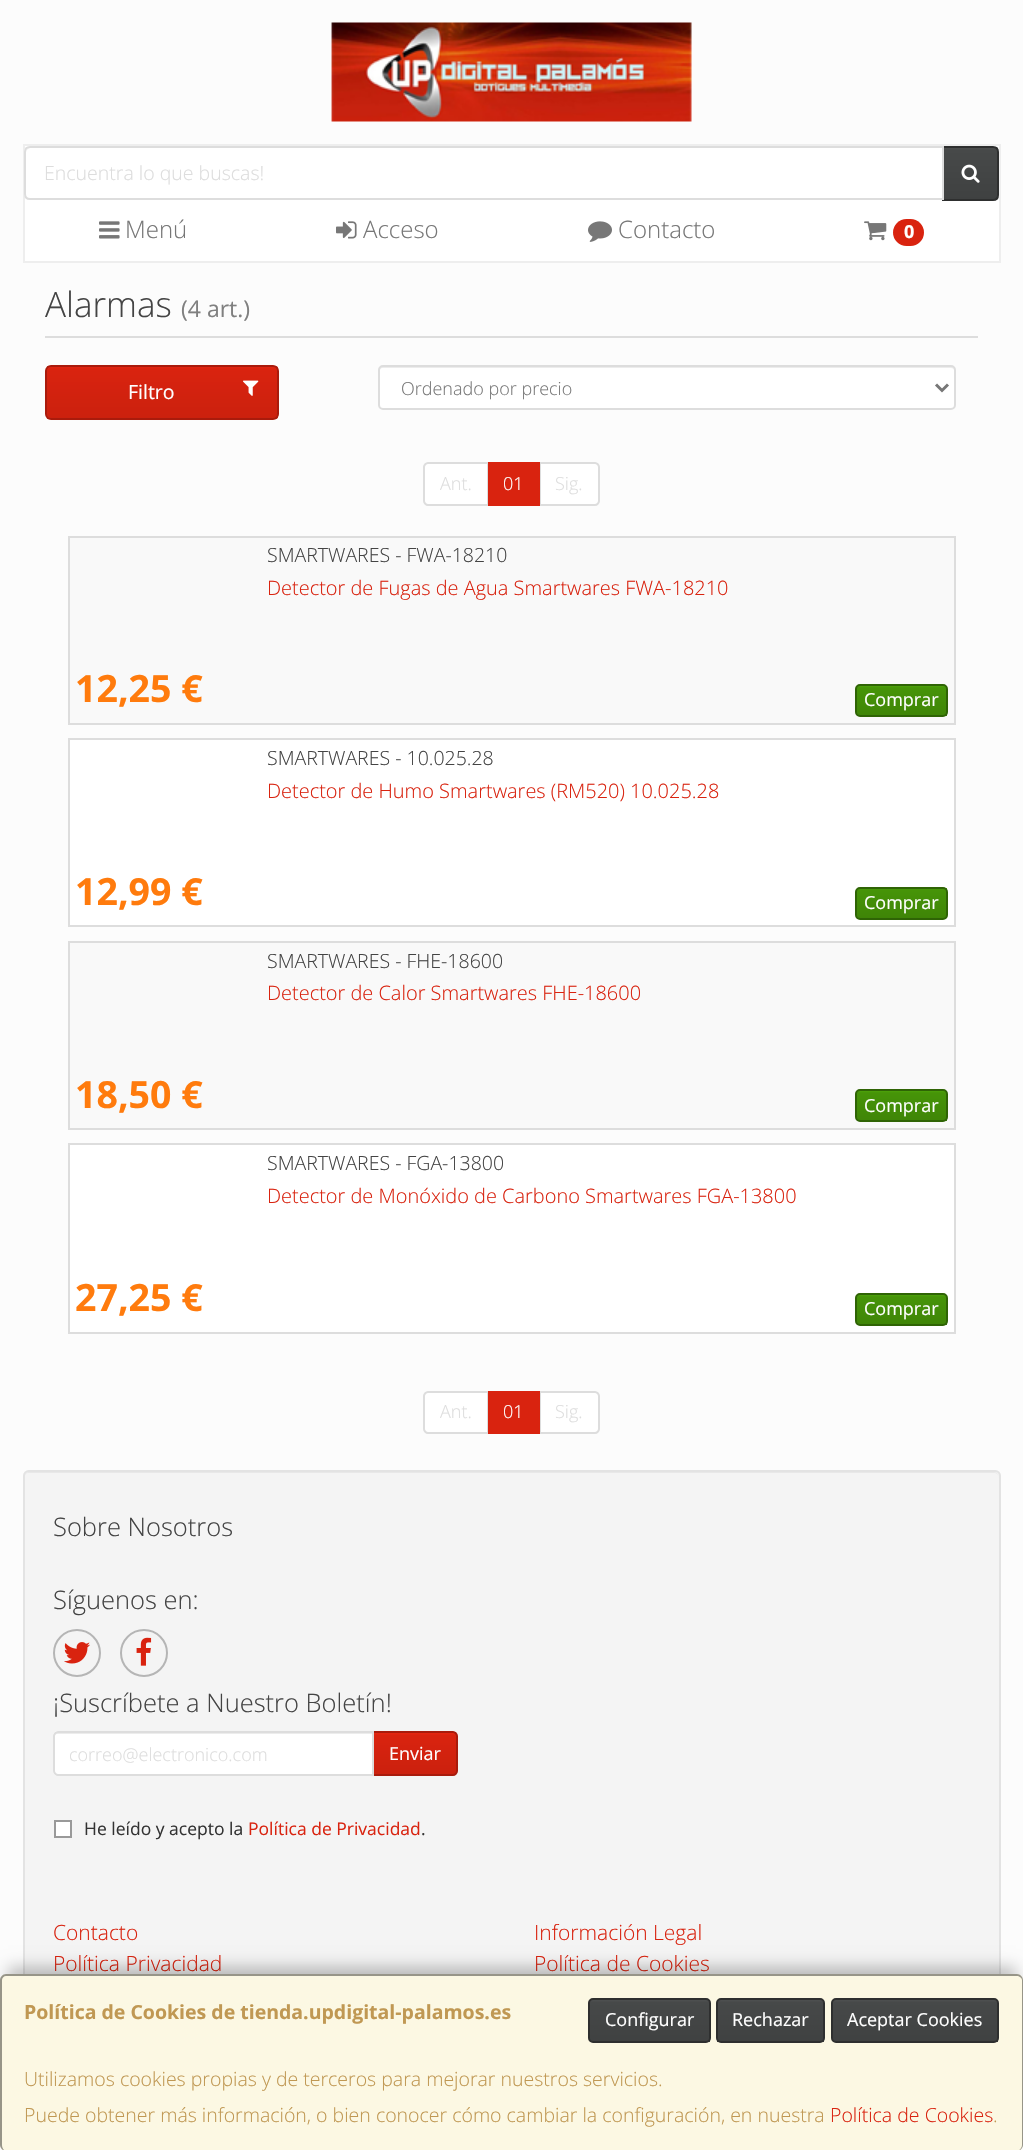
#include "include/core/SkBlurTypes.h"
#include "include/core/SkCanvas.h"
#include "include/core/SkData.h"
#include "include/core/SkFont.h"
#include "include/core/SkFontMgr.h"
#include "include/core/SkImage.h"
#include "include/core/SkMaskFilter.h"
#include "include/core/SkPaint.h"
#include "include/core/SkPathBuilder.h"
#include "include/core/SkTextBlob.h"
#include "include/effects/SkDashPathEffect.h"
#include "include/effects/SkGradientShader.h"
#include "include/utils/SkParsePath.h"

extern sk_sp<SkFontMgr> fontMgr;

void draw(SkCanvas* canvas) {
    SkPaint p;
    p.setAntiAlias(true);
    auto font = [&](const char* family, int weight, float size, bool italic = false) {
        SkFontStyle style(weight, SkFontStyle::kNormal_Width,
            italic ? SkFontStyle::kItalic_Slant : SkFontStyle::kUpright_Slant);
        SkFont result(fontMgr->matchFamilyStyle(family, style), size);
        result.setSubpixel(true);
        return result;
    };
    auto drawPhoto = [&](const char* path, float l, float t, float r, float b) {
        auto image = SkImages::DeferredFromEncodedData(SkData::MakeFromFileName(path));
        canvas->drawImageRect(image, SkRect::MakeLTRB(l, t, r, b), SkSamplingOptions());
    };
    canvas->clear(0xFFFCFCFC);
    drawPhoto("media/1.png", 331, 22, 692, 122);
    p.setColor(0xFFFFFFFF);
    canvas->drawRect(SkRect::MakeLTRB(24, 145, 1000, 262), p);
    p.setStyle(SkPaint::kStroke_Style);
    p.setStrokeWidth(2);
    p.setColor(0xFFEEEEEE);
    canvas->drawRect(SkRect::MakeLTRB(24, 145, 1000, 262), p);
    canvas->save();
    canvas->clipPath(SkPathBuilder().moveTo(942, 146).lineTo(993, 146).cubicTo(996.5f, 146, 999, 148.5f, 999, 152).lineTo(999, 195).cubicTo(999, 198.5f, 996.5f, 201, 993, 201).lineTo(942, 201).close().detach(), true);
    p.setStyle(SkPaint::kFill_Style);
    {
        const SkColor colors[] = {0xFF4F5151, 0xFF474949, 0xFF3F4141};
        const float stops[] = {0, 0.06f, 1};
        const SkPoint ends[] = {{971, 147}, {971, 200}};
        p.setShader(SkGradientShader::MakeLinear(ends, colors, stops, 3, SkTileMode::kClamp));
        p.setAlpha(255);
    }
    canvas->drawRect(SkRect::MakeLTRB(944, 147, 998, 200), p);
    canvas->restore();
    p.setStyle(SkPaint::kStroke_Style);
    p.setShader(nullptr);
    p.setColor(0xFF2E2F2F);
    canvas->drawPath(SkPathBuilder().moveTo(943, 147).lineTo(993, 147).cubicTo(996, 147, 998, 149, 998, 152).lineTo(998, 195).cubicTo(998, 198, 996, 200, 993, 200).lineTo(943, 200).close().detach(), p);
    p.setStyle(SkPaint::kFill_Style);
    p.setColor(0xFFFFFFFF);
    canvas->drawPath(SkPathBuilder().moveTo(30, 146).lineTo(944, 146).lineTo(944, 200).lineTo(30, 200).cubicTo(26.5f, 200, 24, 197.5f, 24, 194).lineTo(24, 152).cubicTo(24, 148.5f, 26.5f, 146, 30, 146).close().detach(), p);
    p.setColor(0xFFECECEC);
    canvas->drawPath(SkPathBuilder().moveTo(30, 148).lineTo(942, 148).lineTo(942, 147).lineTo(31, 147).cubicTo(28, 147, 26, 150, 26, 153).cubicTo(26, 151, 28, 148, 30, 148).close().detach(), p);
    p.setStyle(SkPaint::kStroke_Style);
    p.setColor(0xFFDDDDDD);
    canvas->drawPath(SkPathBuilder().moveTo(30, 147).lineTo(943, 147).lineTo(943, 199).lineTo(30, 199).cubicTo(27, 199, 25, 197, 25, 194).lineTo(25, 152).cubicTo(25, 149, 27, 147, 30, 147).close().detach(), p);
    auto font1 = font("Open Sans", 300, 19.5f);
    p.setStyle(SkPaint::kFill_Style);
    canvas->drawString("Encuentra lo que buscas!", 44, 180, font1, p);
    drawPhoto("media/2.png", 961, 164, 980, 183);
    drawPhoto("media/3.png", 99, 221, 120, 239);
    auto font2 = font("Open Sans", 300, 24);
    p.setColor(0xFF777777);
    canvas->drawString("Menú", 125, 238, font2, p);
    drawPhoto("media/4.png", 336, 221, 357, 239);
    canvas->drawString("Acceso", 363, 238, font2, p);
    drawPhoto("media/5.png", 588, 221, 612, 242);
    canvas->drawString("Contacto", 618, 238, font2, p);
    drawPhoto("media/6.png", 864, 221, 887, 241);
    p.setColor(0xFFD9230F);
    canvas->drawRoundRect(SkRect::MakeLTRB(893, 219, 924, 246), 13.5f, 13.5f, p);
    auto font3 = font("Open Sans", 700, 18);
    p.setColor(0xFFFFFFFF);
    canvas->drawString("0", 904, 238, font3, p);
    p.setColor(0xFFDDDDDD);
    canvas->drawRect(SkRect::MakeLTRB(45, 336, 978, 338), p);
    auto font4 = font("Open Sans", 300, 35);
    p.setColor(0xFF444444);
    canvas->drawString("Alarmas", 45, 317, font4, p);
    auto font5 = font("Open Sans", 400, 23);
    p.setColor(0xFF808080);
    canvas->drawString("(4 art.)", 181, 317, font5, p);
    canvas->save();
    canvas->clipPath(SkPathBuilder().moveTo(51, 365).lineTo(273, 365).cubicTo(276.5f, 365, 279, 367.5f, 279, 371).lineTo(279, 414).cubicTo(279, 417.5f, 276.5f, 420, 273, 420).lineTo(51, 420).cubicTo(47.5f, 420, 45, 417.5f, 45, 414).lineTo(45, 371).cubicTo(45, 367.5f, 47.5f, 365, 51, 365).close().detach(), true);
    {
        const SkColor colors[] = {0xFFE72510, 0xFFD9230F, 0xFFCB210E};
        const float stops[] = {0, 0.06f, 1};
        const SkPoint ends[] = {{162, 366}, {162, 419}};
        p.setShader(SkGradientShader::MakeLinear(ends, colors, stops, 3, SkTileMode::kClamp));
        p.setAlpha(255);
    }
    canvas->drawRect(SkRect::MakeLTRB(47, 366, 278, 419), p);
    canvas->restore();
    p.setStyle(SkPaint::kStroke_Style);
    p.setShader(nullptr);
    p.setColor(0xFFA91B0C);
    canvas->drawRoundRect(SkRect::MakeLTRB(46, 366, 278, 419), 5, 5, p);
    auto font6 = font("Open Sans", 400, 19.5f);
    p.setStyle(SkPaint::kFill_Style);
    p.setColor(0xFFFFFFFF);
    canvas->drawString("Filtro", 128, 399, font6, p);
    drawPhoto("media/7.png", 243, 380, 259, 396);
    canvas->drawRoundRect(SkRect::MakeLTRB(378, 365, 956, 410), 5, 5, p);
    p.setColor(0xFFECECEC);
    canvas->drawPath(SkPathBuilder().moveTo(382, 368).lineTo(951, 368).cubicTo(953, 368, 954, 369, 954, 370).lineTo(954, 369).cubicTo(954, 367, 953, 366, 951, 366).lineTo(383, 366).cubicTo(381, 366, 380, 367, 380, 369).lineTo(380, 370).cubicTo(380, 369, 381, 368, 382, 368).close().detach(), p);
    p.setStyle(SkPaint::kStroke_Style);
    p.setColor(0xFFDDDDDD);
    canvas->drawRoundRect(SkRect::MakeLTRB(379, 366, 955, 409), 4, 4, p);
    p.setStrokeWidth(3);
    p.setColor(0xFF777777);
    canvas->drawPath(SkPathBuilder().moveTo(936, 384.5f).lineTo(942, 390.5f).lineTo(948, 384.5f).detach(), p);
    auto font7 = font("Open Sans", 300, 18);
    p.setStyle(SkPaint::kFill_Style);
    canvas->drawString("Ordenado por precio", 401, 395, font7, p);
    p.setColor(0xFFFFFFFF);
    canvas->drawPath(SkPathBuilder().moveTo(428, 463).lineTo(488, 463).lineTo(488, 505).lineTo(428, 505).cubicTo(426, 505, 424, 503, 424, 501).lineTo(424, 467).cubicTo(424, 465, 426, 463, 428, 463).close().detach(), p);
    p.setStyle(SkPaint::kStroke_Style);
    p.setStrokeWidth(2);
    p.setColor(0xFFDDDDDD);
    canvas->drawPath(SkPathBuilder().moveTo(428, 463).lineTo(488, 463).lineTo(488, 505).lineTo(428, 505).cubicTo(426, 505, 424, 503, 424, 501).lineTo(424, 467).cubicTo(424, 465, 426, 463, 428, 463).close().detach(), p);
    p.setStyle(SkPaint::kFill_Style);
    canvas->drawString("Ant.", 440, 490, font7, p);
    p.setColor(0xFFFFFFFF);
    canvas->drawPath(SkPathBuilder().moveTo(540, 463).lineTo(595, 463).cubicTo(597, 463, 599, 465, 599, 467).lineTo(599, 501).cubicTo(599, 503, 597, 505, 595, 505).lineTo(540, 505).close().detach(), p);
    p.setStyle(SkPaint::kStroke_Style);
    p.setColor(0xFFDDDDDD);
    canvas->drawPath(SkPathBuilder().moveTo(540, 463).lineTo(595, 463).cubicTo(597, 463, 599, 465, 599, 467).lineTo(599, 501).cubicTo(599, 503, 597, 505, 595, 505).lineTo(540, 505).close().detach(), p);
    p.setStyle(SkPaint::kFill_Style);
    p.setColor(0xFFD9230F);
    canvas->drawRect(SkRect::MakeLTRB(488, 462, 540, 506), p);
    p.setColor(0xFFFFFFFF);
    canvas->drawString("01", 503, 490, font7, p);
    p.setColor(0xFFDDDDDD);
    canvas->drawString("Sig.", 555, 490, font7, p);
    p.setColor(0xFFF9F9F9);
    canvas->drawRect(SkRect::MakeLTRB(69, 537, 955, 724), p);
    p.setStyle(SkPaint::kStroke_Style);
    p.setColor(0xFFDDDDDD);
    canvas->drawRect(SkRect::MakeLTRB(69, 537, 955, 724), p);
    p.setStyle(SkPaint::kFill_Style);
    p.setColor(0xFF444444);
    canvas->drawString("SMARTWARES - FWA-18210", 267, 562, font1, p);
    auto font8 = font("Open Sans", 300, 19.95f);
    p.setColor(0xFFD9230F);
    canvas->drawString("Detector de Fugas de Agua Smartwares FWA-18210", 267, 595, font8, p);
    auto font9 = font("Open Sans", 700, 37.5f);
    p.setColor(0xFFFF7B0D);
    canvas->drawString("12,25 €", 75, 702, font9, p);
    {
        const SkColor colors[] = {0xFF4DA309, 0xFF469408, 0xFF3F8507};
        const float stops[] = {0, 0.06f, 1};
        const SkPoint ends[] = {{902, 686}, {902, 716}};
        p.setShader(SkGradientShader::MakeLinear(ends, colors, stops, 3, SkTileMode::kClamp));
        p.setAlpha(255);
    }
    canvas->drawRect(SkRect::MakeLTRB(857, 686, 947, 716), p);
    p.setStyle(SkPaint::kStroke_Style);
    p.setShader(nullptr);
    p.setColor(0xFF2F6405);
    canvas->drawRoundRect(SkRect::MakeLTRB(856, 685, 947, 716), 4, 4, p);
    auto font10 = font("Open Sans", 400, 18);
    p.setStyle(SkPaint::kFill_Style);
    p.setColor(0xFFFFFFFF);
    canvas->drawString("Comprar", 864, 706, font10, p);
    canvas->drawRect(SkRect::MakeLTRB(69, 739, 955, 926), p);
    p.setStyle(SkPaint::kStroke_Style);
    p.setColor(0xFFDDDDDD);
    canvas->drawRect(SkRect::MakeLTRB(69, 739, 955, 926), p);
    p.setStyle(SkPaint::kFill_Style);
    p.setColor(0xFF444444);
    canvas->drawString("SMARTWARES - 10.025.28", 267, 765, font1, p);
    p.setColor(0xFFD9230F);
    canvas->drawString("Detector de Humo Smartwares (RM520) 10.025.28", 267, 798, font8, p);
    p.setColor(0xFFFF7B0D);
    canvas->drawString("12,99 €", 75, 905, font9, p);
    {
        const SkColor colors[] = {0xFF4DA309, 0xFF469408, 0xFF3F8507};
        const float stops[] = {0, 0.06f, 1};
        const SkPoint ends[] = {{902, 888}, {902, 918}};
        p.setShader(SkGradientShader::MakeLinear(ends, colors, stops, 3, SkTileMode::kClamp));
        p.setAlpha(255);
    }
    canvas->drawRect(SkRect::MakeLTRB(857, 888, 947, 918), p);
    p.setStyle(SkPaint::kStroke_Style);
    p.setShader(nullptr);
    p.setColor(0xFF2F6405);
    canvas->drawRoundRect(SkRect::MakeLTRB(856, 888, 947, 919), 4, 4, p);
    p.setStyle(SkPaint::kFill_Style);
    p.setColor(0xFFFFFFFF);
    canvas->drawString("Comprar", 864, 909, font10, p);
    p.setColor(0xFFF9F9F9);
    canvas->drawRect(SkRect::MakeLTRB(69, 942, 955, 1129), p);
    p.setStyle(SkPaint::kStroke_Style);
    p.setColor(0xFFDDDDDD);
    canvas->drawRect(SkRect::MakeLTRB(69, 942, 955, 1129), p);
    p.setStyle(SkPaint::kFill_Style);
    p.setColor(0xFF444444);
    canvas->drawString("SMARTWARES - FHE-18600", 267, 968, font1, p);
    p.setColor(0xFFD9230F);
    canvas->drawString("Detector de Calor Smartwares FHE-18600", 267, 1000, font8, p);
    p.setColor(0xFFFF7B0D);
    canvas->drawString("18,50 €", 75, 1108, font9, p);
    {
        const SkColor colors[] = {0xFF4DA309, 0xFF469408, 0xFF3F8507};
        const float stops[] = {0, 0.06f, 1};
        const SkPoint ends[] = {{902, 1091}, {902, 1121}};
        p.setShader(SkGradientShader::MakeLinear(ends, colors, stops, 3, SkTileMode::kClamp));
        p.setAlpha(255);
    }
    canvas->drawRect(SkRect::MakeLTRB(857, 1091, 947, 1121), p);
    p.setStyle(SkPaint::kStroke_Style);
    p.setShader(nullptr);
    p.setColor(0xFF2F6405);
    canvas->drawRoundRect(SkRect::MakeLTRB(856, 1090, 947, 1121), 4, 4, p);
    p.setStyle(SkPaint::kFill_Style);
    p.setColor(0xFFFFFFFF);
    canvas->drawString("Comprar", 864, 1112, font10, p);
    canvas->drawRect(SkRect::MakeLTRB(69, 1144, 955, 1333), p);
    p.setStyle(SkPaint::kStroke_Style);
    p.setColor(0xFFDDDDDD);
    canvas->drawRect(SkRect::MakeLTRB(69, 1144, 955, 1333), p);
    p.setStyle(SkPaint::kFill_Style);
    p.setColor(0xFF444444);
    canvas->drawString("SMARTWARES - FGA-13800", 267, 1170, font1, p);
    p.setColor(0xFFD9230F);
    canvas->drawString("Detector de Monóxido de Carbono Smartwares FGA-13800", 267, 1203, font8, p);
    p.setColor(0xFFFF7B0D);
    canvas->drawString("27,25 €", 75, 1311, font9, p);
    {
        const SkColor colors[] = {0xFF4DA309, 0xFF469408, 0xFF3F8507};
        const float stops[] = {0, 0.06f, 1};
        const SkPoint ends[] = {{902, 1295}, {902, 1325}};
        p.setShader(SkGradientShader::MakeLinear(ends, colors, stops, 3, SkTileMode::kClamp));
        p.setAlpha(255);
    }
    canvas->drawRect(SkRect::MakeLTRB(857, 1295, 947, 1325), p);
    p.setStyle(SkPaint::kStroke_Style);
    p.setShader(nullptr);
    p.setColor(0xFF2F6405);
    canvas->drawRoundRect(SkRect::MakeLTRB(856, 1294, 947, 1325), 4, 4, p);
    p.setStyle(SkPaint::kFill_Style);
    p.setColor(0xFFFFFFFF);
    canvas->drawString("Comprar", 864, 1315, font10, p);
    canvas->drawPath(SkPathBuilder().moveTo(428, 1392).lineTo(488, 1392).lineTo(488, 1433).lineTo(428, 1433).cubicTo(426, 1433, 424, 1431, 424, 1429).lineTo(424, 1396).cubicTo(424, 1394, 426, 1392, 428, 1392).close().detach(), p);
    p.setStyle(SkPaint::kStroke_Style);
    p.setColor(0xFFDDDDDD);
    canvas->drawPath(SkPathBuilder().moveTo(428, 1392).lineTo(488, 1392).lineTo(488, 1433).lineTo(428, 1433).cubicTo(426, 1433, 424, 1431, 424, 1429).lineTo(424, 1396).cubicTo(424, 1394, 426, 1392, 428, 1392).close().detach(), p);
    p.setStyle(SkPaint::kFill_Style);
    canvas->drawString("Ant.", 440, 1418, font7, p);
    p.setColor(0xFFFFFFFF);
    canvas->drawPath(SkPathBuilder().moveTo(540, 1392).lineTo(595, 1392).cubicTo(597, 1392, 599, 1394, 599, 1396).lineTo(599, 1429).cubicTo(599, 1431, 597, 1433, 595, 1433).lineTo(540, 1433).close().detach(), p);
    p.setStyle(SkPaint::kStroke_Style);
    p.setColor(0xFFDDDDDD);
    canvas->drawPath(SkPathBuilder().moveTo(540, 1392).lineTo(595, 1392).cubicTo(597, 1392, 599, 1394, 599, 1396).lineTo(599, 1429).cubicTo(599, 1431, 597, 1433, 595, 1433).lineTo(540, 1433).close().detach(), p);
    p.setStyle(SkPaint::kFill_Style);
    p.setColor(0xFFD9230F);
    canvas->drawRect(SkRect::MakeLTRB(488, 1391, 540, 1434), p);
    p.setColor(0xFFFFFFFF);
    canvas->drawString("01", 503, 1418, font7, p);
    p.setColor(0xFFDDDDDD);
    canvas->drawString("Sig.", 555, 1418, font7, p);
    p.setColor(0xFFF4F4F4);
    canvas->drawRoundRect(SkRect::MakeLTRB(23, 1470, 1001, 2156), 6, 6, p);
    p.setColor(0xFFE8E8E8);
    canvas->drawPath(SkPathBuilder().moveTo(28, 1473).lineTo(994, 1473).cubicTo(997, 1473, 999, 1475, 999, 1478).cubicTo(999, 1475, 997, 1472, 994, 1472).lineTo(29, 1472).cubicTo(26, 1472, 24, 1475, 24, 1478).cubicTo(24, 1475, 26, 1473, 28, 1473).close().detach(), p);
    p.setStyle(SkPaint::kStroke_Style);
    p.setColor(0xFFE3E3E3);
    canvas->drawRoundRect(SkRect::MakeLTRB(24, 1471, 1000, 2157), 5, 5, p);
    auto font11 = font("Open Sans", 300, 25.5f);
    p.setStyle(SkPaint::kFill_Style);
    p.setColor(0xFF444444);
    canvas->drawString("Sobre Nosotros", 53, 1536, font11, p);
    canvas->drawString("Síguenos en:", 53, 1609, font11, p);
    p.setStyle(SkPaint::kStroke_Style);
    p.setColor(0xFFB5B5B5);
    canvas->drawCircle(77, 1653, 23, p);
    drawPhoto("media/8.png", 64, 1642, 90, 1664);
    canvas->drawCircle(144, 1653, 23, p);
    drawPhoto("media/9.png", 136, 1637, 152, 1666);
    p.setStyle(SkPaint::kFill_Style);
    p.setColor(0xFF444444);
    canvas->drawString("¡Suscríbete a Nuestro Boletín!", 53, 1712, font11, p);
    {
        const SkColor colors[] = {0xFFE72510, 0xFFD9230F, 0xFFCB210E};
        const float stops[] = {0, 0.06f, 1};
        const SkPoint ends[] = {{415, 1733}, {415, 1775}};
        p.setShader(SkGradientShader::MakeLinear(ends, colors, stops, 3, SkTileMode::kClamp));
        p.setAlpha(255);
    }
    canvas->drawRect(SkRect::MakeLTRB(374, 1733, 456, 1774), p);
    p.setStyle(SkPaint::kStroke_Style);
    p.setShader(nullptr);
    p.setColor(0xFFA91B0C);
    canvas->drawPath(SkPathBuilder().moveTo(373, 1732).lineTo(453, 1732).cubicTo(455, 1732, 457, 1734, 457, 1736).lineTo(457, 1771).cubicTo(457, 1773, 455, 1775, 453, 1775).lineTo(373, 1775).close().detach(), p);
    p.setStyle(SkPaint::kFill_Style);
    p.setColor(0xFFFFFFFF);
    canvas->drawPath(SkPathBuilder().moveTo(58, 1731).lineTo(374, 1731).lineTo(374, 1776).lineTo(58, 1776).cubicTo(55, 1776, 53, 1774, 53, 1771).lineTo(53, 1736).cubicTo(53, 1733, 55, 1731, 58, 1731).close().detach(), p);
    p.setColor(0xFFECECEC);
    canvas->drawPath(SkPathBuilder().moveTo(57, 1734).lineTo(372, 1734).lineTo(372, 1733).lineTo(57, 1733).cubicTo(55, 1733, 54, 1735, 54, 1737).cubicTo(54, 1735, 55, 1734, 57, 1734).close().detach(), p);
    p.setStyle(SkPaint::kStroke_Style);
    p.setColor(0xFFDDDDDD);
    canvas->drawPath(SkPathBuilder().moveTo(58, 1732).lineTo(373, 1732).lineTo(373, 1775).lineTo(58, 1775).cubicTo(56, 1775, 54, 1773, 54, 1771).lineTo(54, 1736).cubicTo(54, 1734, 56, 1732, 58, 1732).close().detach(), p);
    p.setStyle(SkPaint::kFill_Style);
    canvas->drawString("correo@electronico.com", 69, 1761, font7, p);
    p.setColor(0xFFFFFFFF);
    canvas->drawString("Enviar", 389, 1760, font10, p);
    canvas->drawRect(SkRect::MakeLTRB(55, 1821, 71, 1837), p);
    p.setStyle(SkPaint::kStroke_Style);
    p.setColor(0xFF999999);
    canvas->drawRect(SkRect::MakeLTRB(55, 1821, 71, 1837), p);
    auto font12 = font("Open Sans", 400, 17.5f);
    p.setStyle(SkPaint::kFill_Style);
    p.setColor(0xFF333333);
    canvas->drawString("He leído y acepto la", 84, 1835, font12, p);
    p.setColor(0xFFD9230F);
    canvas->drawString("Política de Privacidad", 248, 1835, font12, p);
    p.setColor(0xFF333333);
    canvas->drawString(".", 421, 1835, font12, p);
    auto font13 = font("Open Sans", 300, 21);
    p.setColor(0xFFD9230F);
    {
        const struct { const char* s; float x, y; } items[] = {
            {"Contacto", 53, 1940},
            {"Información Legal", 534, 1940},
            {"Política Privacidad", 53, 1971},
            {"Política de Cookies", 534, 1971},
        };
        for (auto [s, x, y] : items) {
            canvas->drawString(s, x, y, font13, p);
        }
    }
    p.setColor(0x40000000);
    p.setMaskFilter(SkMaskFilter::MakeBlur(kNormal_SkBlurStyle, 7.5f));
    canvas->drawRect(SkRect::MakeLTRB(8, 1967, 1016, 2129), p);
    p.setMaskFilter(nullptr);
    p.setColor(0xFFFCF8E3);
    canvas->drawRoundRect(SkRect::MakeLTRB(0, 1974, 1023, 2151), 6, 6, p);
    p.setColor(0x66000000);
    canvas->drawPath(SkPathBuilder(SkPathFillType::kEvenOdd).moveTo(6, 1974).lineTo(1017, 1974).cubicTo(1020, 1974, 1023, 1977, 1023, 1980).lineTo(1023, 2145).cubicTo(1023, 2148, 1020, 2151, 1017, 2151).lineTo(6, 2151).cubicTo(3, 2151, 0, 2148, 0, 2145).lineTo(0, 1980).cubicTo(0, 1977, 3, 1974, 6, 1974).close().moveTo(6, 1976).lineTo(1017, 1976).cubicTo(1019, 1976, 1022, 1978, 1022, 1980).lineTo(1022, 2145).cubicTo(1022, 2148, 1019, 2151, 1017, 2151).lineTo(6, 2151).cubicTo(4, 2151, 2, 2148, 2, 2145).lineTo(2, 1980).cubicTo(2, 1978, 4, 1976, 6, 1976).close().detach(), p);
    auto font14 = font("Open Sans", 700, 19.5f);
    p.setColor(0xFFC09853);
    canvas->drawString("Política de Cookies de tienda.updigital-palamos.es", 24, 2019, font14, p);
    {
        const SkColor colors[] = {0xFF4F5151, 0xFF474949, 0xFF3F4141};
        const float stops[] = {0, 0.06f, 1};
        const SkPoint ends[] = {{650, 2000}, {650, 2042}};
        p.setShader(SkGradientShader::MakeLinear(ends, colors, stops, 3, SkTileMode::kClamp));
        p.setAlpha(255);
    }
    canvas->drawRect(SkRect::MakeLTRB(590, 2000, 710, 2042), p);
    p.setStyle(SkPaint::kStroke_Style);
    p.setShader(nullptr);
    p.setColor(0xFF2E2F2F);
    canvas->drawRoundRect(SkRect::MakeLTRB(589, 1999, 710, 2042), 4, 4, p);
    p.setStyle(SkPaint::kFill_Style);
    p.setColor(0xFFFFFFFF);
    canvas->drawString("Configurar", 605, 2026, font10, p);
    {
        const SkColor colors[] = {0xFF4F5151, 0xFF474949, 0xFF3F4141};
        const float stops[] = {0, 0.06f, 1};
        const SkPoint ends[] = {{770, 2000}, {770, 2042}};
        p.setShader(SkGradientShader::MakeLinear(ends, colors, stops, 3, SkTileMode::kClamp));
        p.setAlpha(255);
    }
    canvas->drawRect(SkRect::MakeLTRB(717, 2000, 824, 2042), p);
    p.setStyle(SkPaint::kStroke_Style);
    p.setShader(nullptr);
    p.setColor(0xFF2E2F2F);
    canvas->drawRoundRect(SkRect::MakeLTRB(717, 1999, 824, 2042), 4, 4, p);
    p.setStyle(SkPaint::kFill_Style);
    p.setColor(0xFFFFFFFF);
    canvas->drawString("Rechazar", 732, 2026, font10, p);
    {
        const SkColor colors[] = {0xFF4F5151, 0xFF474949, 0xFF3F4141};
        const float stops[] = {0, 0.06f, 1};
        const SkPoint ends[] = {{915, 2000}, {915, 2042}};
        p.setShader(SkGradientShader::MakeLinear(ends, colors, stops, 3, SkTileMode::kClamp));
        p.setAlpha(255);
    }
    canvas->drawRect(SkRect::MakeLTRB(833, 2000, 998, 2042), p);
    p.setStyle(SkPaint::kStroke_Style);
    p.setShader(nullptr);
    p.setColor(0xFF2E2F2F);
    canvas->drawRoundRect(SkRect::MakeLTRB(832, 1999, 998, 2042), 4, 4, p);
    p.setStyle(SkPaint::kFill_Style);
    p.setColor(0xFFFFFFFF);
    canvas->drawString("Aceptar Cookies", 847, 2026, font10, p);
    p.setColor(0xFFC09853);
    canvas->drawString("Utilizamos cookies propias y de terceros para mejorar nuestros servicios.", 24, 2086, font1, p);
    canvas->drawString("Puede obtener más información, o bien conocer cómo cambiar la configuración, en nuestra", 24, 2122, font1, p);
    p.setColor(0xFFD9230F);
    canvas->drawString("Política de Cookies", 830, 2122, font1, p);
    p.setColor(0xFFC09853);
    canvas->drawString(".", 993, 2122, font1, p);
}
